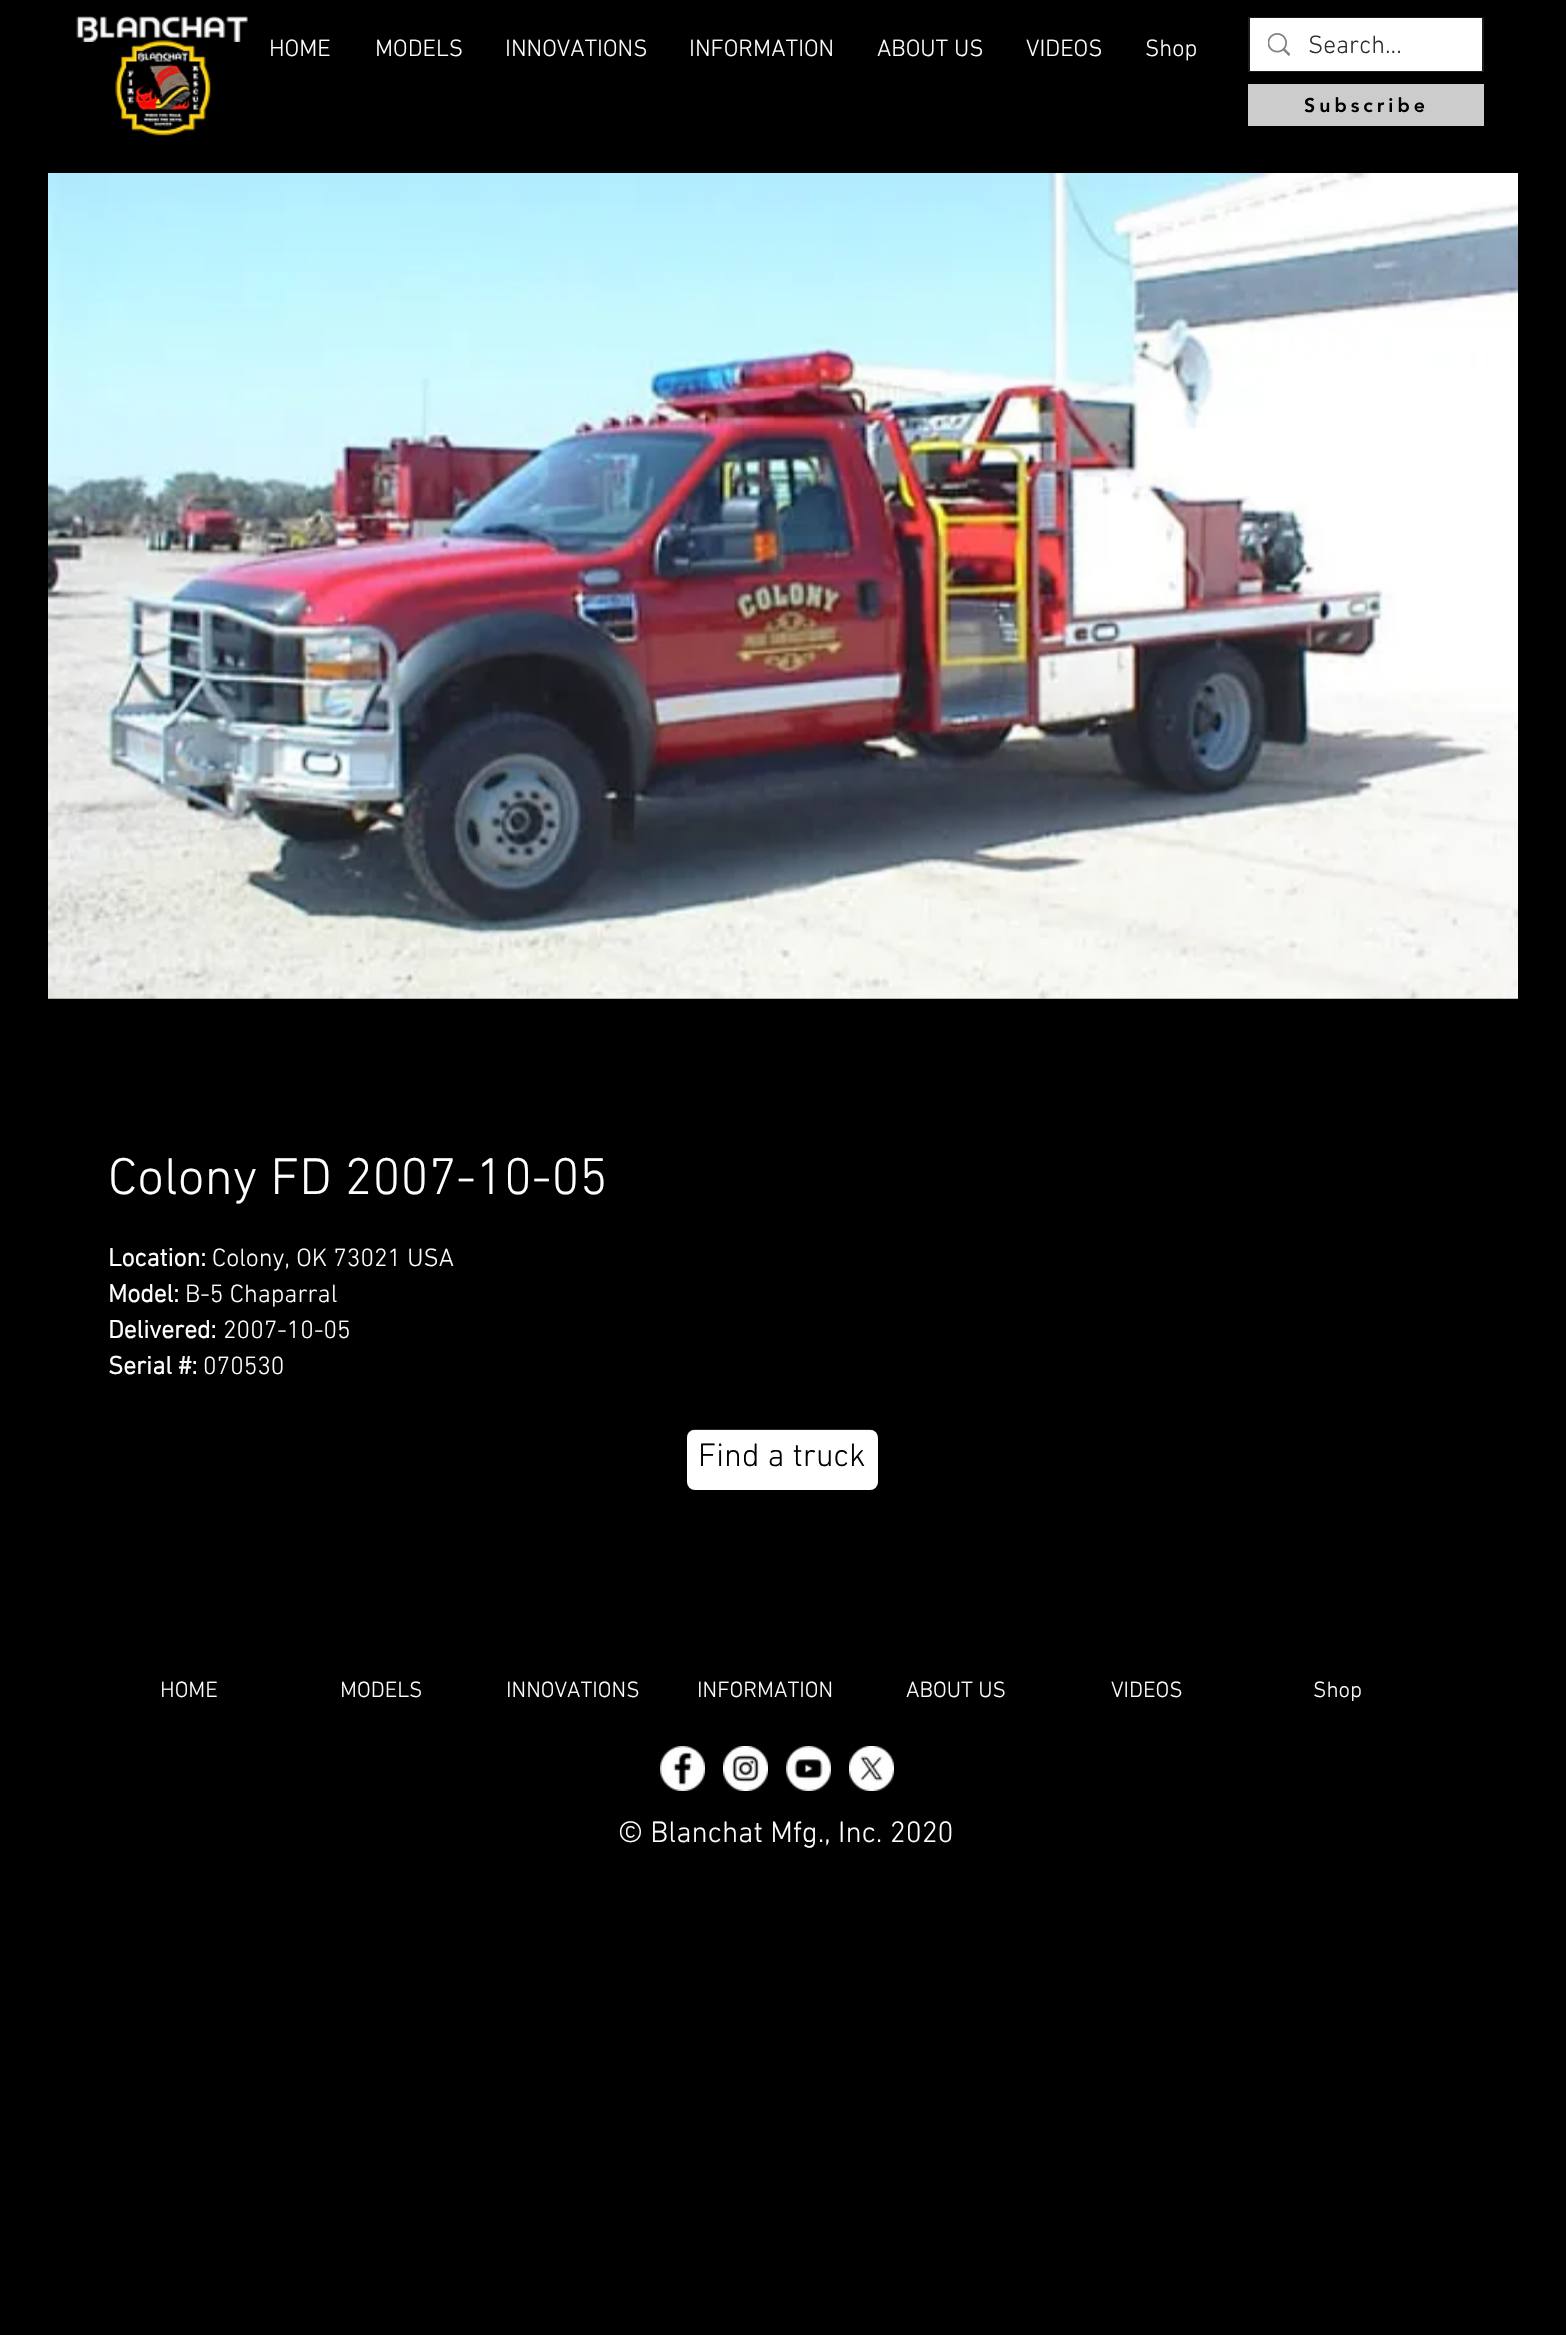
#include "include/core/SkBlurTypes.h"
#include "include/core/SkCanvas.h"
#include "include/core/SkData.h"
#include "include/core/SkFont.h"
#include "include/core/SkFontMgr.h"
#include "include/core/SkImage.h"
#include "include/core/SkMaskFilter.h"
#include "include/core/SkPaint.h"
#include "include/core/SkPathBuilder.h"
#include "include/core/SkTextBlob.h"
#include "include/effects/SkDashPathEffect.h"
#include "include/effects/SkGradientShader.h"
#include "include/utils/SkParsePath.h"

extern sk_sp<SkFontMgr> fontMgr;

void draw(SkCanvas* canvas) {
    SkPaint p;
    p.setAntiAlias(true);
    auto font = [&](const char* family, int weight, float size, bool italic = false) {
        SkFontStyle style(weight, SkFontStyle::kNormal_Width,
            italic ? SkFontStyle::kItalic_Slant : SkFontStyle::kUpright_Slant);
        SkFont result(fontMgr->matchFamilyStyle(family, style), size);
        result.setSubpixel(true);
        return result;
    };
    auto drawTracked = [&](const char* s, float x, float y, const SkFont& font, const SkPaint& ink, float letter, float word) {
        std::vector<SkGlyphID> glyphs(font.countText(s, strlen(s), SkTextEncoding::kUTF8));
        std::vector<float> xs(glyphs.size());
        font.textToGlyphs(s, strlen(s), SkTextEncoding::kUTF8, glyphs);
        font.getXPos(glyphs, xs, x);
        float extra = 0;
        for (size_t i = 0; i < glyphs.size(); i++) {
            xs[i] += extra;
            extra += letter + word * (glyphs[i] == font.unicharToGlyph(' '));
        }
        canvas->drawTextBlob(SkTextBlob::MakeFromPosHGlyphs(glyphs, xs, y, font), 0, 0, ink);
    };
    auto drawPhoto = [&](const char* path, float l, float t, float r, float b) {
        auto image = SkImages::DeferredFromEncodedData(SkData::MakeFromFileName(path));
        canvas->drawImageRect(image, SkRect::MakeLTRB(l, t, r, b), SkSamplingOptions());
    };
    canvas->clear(0xFF000000);
    drawPhoto("media/2.png", 115, 40, 211, 136);
    drawPhoto("media/1.png", 76, 16, 248, 42);
    auto font1 = font("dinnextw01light", 300, 24);
    p.setColor(0xFFFFFFFF);
    {
        const struct { const char* s; float x, y; } items[] = {
            {"HOME", 269, 56},
            {"MODELS", 375, 56},
            {"INNOVATIONS", 505, 56},
            {"INFORMATION", 689, 56},
            {"ABOUT US", 877, 56},
            {"VIDEOS", 1026, 56},
            {"Shop", 1145, 56},
        };
        for (auto [s, x, y] : items) {
            canvas->drawString(s, x, y, font1, p);
        }
    }
    p.setStyle(SkPaint::kStroke_Style);
    p.setStrokeWidth(2);
    p.setColor(0xFF1C1C1C);
    canvas->drawRect(SkRect::MakeLTRB(1249, 18, 1483, 71), p);
    p.setStyle(SkPaint::kFill_Style);
    p.setColor(0xFFFFFFFF);
    canvas->drawRect(SkRect::MakeLTRB(1250, 18, 1482, 71), p);
    drawPhoto("media/3.png", 1268, 33, 1290, 56);
    auto font2 = font("dinnextw01light", 300, 25.5f);
    p.setColor(0xFF2F2E2E);
    canvas->drawString("Search...", 1308, 53, font2, p);
    p.setColor(0xFFCCCCCC);
    canvas->drawRect(SkRect::MakeLTRB(1248, 84, 1484, 126), p);
    auto font3 = font("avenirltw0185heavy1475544", 900, 19.5f);
    p.setColor(0xFF000000);
    drawTracked("Subscribe", 1304, 112, font3, p, 4, 0);
    drawPhoto("media/4.png", 48, 173, 1518, 999);
    auto font4 = font("dinnextw01light", 300, 52.5f);
    p.setColor(0xFFFFFFFF);
    canvas->drawString("Colony FD 2007-10-05", 108, 1194, font4, p);
    auto font5 = font("dinnextw01light", 700, 25.5f);
    canvas->drawString("Location:", 108, 1266, font5, p);
    canvas->drawString("Colony, OK 73021 USA", 212, 1266, font2, p);
    canvas->drawString("Model:", 108, 1302, font5, p);
    canvas->drawString("B-5 Chaparral", 185, 1302, font2, p);
    canvas->drawString("Delivered:", 108, 1338, font5, p);
    canvas->drawString("2007-10-05", 223, 1338, font2, p);
    canvas->drawString("Serial #:", 108, 1374, font5, p);
    canvas->drawString("070530", 203, 1374, font2, p);
    canvas->drawRoundRect(SkRect::MakeLTRB(687, 1430, 878, 1490), 8, 8, p);
    drawPhoto("media/5.png", 687, 1429, 878, 1438);
    auto font6 = font("dinnextw01light", 300, 33);
    p.setColor(0xFF000000);
    canvas->drawString("Find a truck", 698, 1466, font6, p);
    auto font7 = font("dinnextw01light", 300, 22.5f);
    p.setColor(0xFFFFFFFF);
    {
        const struct { const char* s; float x, y; } items[] = {
            {"HOME", 160, 1697},
            {"MODELS", 340, 1697},
            {"INNOVATIONS", 506, 1697},
            {"INFORMATION", 697, 1697},
            {"ABOUT US", 906, 1697},
            {"VIDEOS", 1111, 1697},
            {"Shop", 1313, 1697},
        };
        for (auto [s, x, y] : items) {
            canvas->drawString(s, x, y, font7, p);
        }
    }
    drawPhoto("media/6.png", 660, 1746, 705, 1791);
    drawPhoto("media/7.png", 723, 1746, 768, 1791);
    drawPhoto("media/8.png", 786, 1746, 831, 1791);
    drawPhoto("media/9.png", 849, 1746, 894, 1791);
    auto font8 = font("dinnextw01light", 300, 30);
    canvas->drawString("© Blanchat Mfg., Inc. 2020", 618, 1842, font8, p);
}
